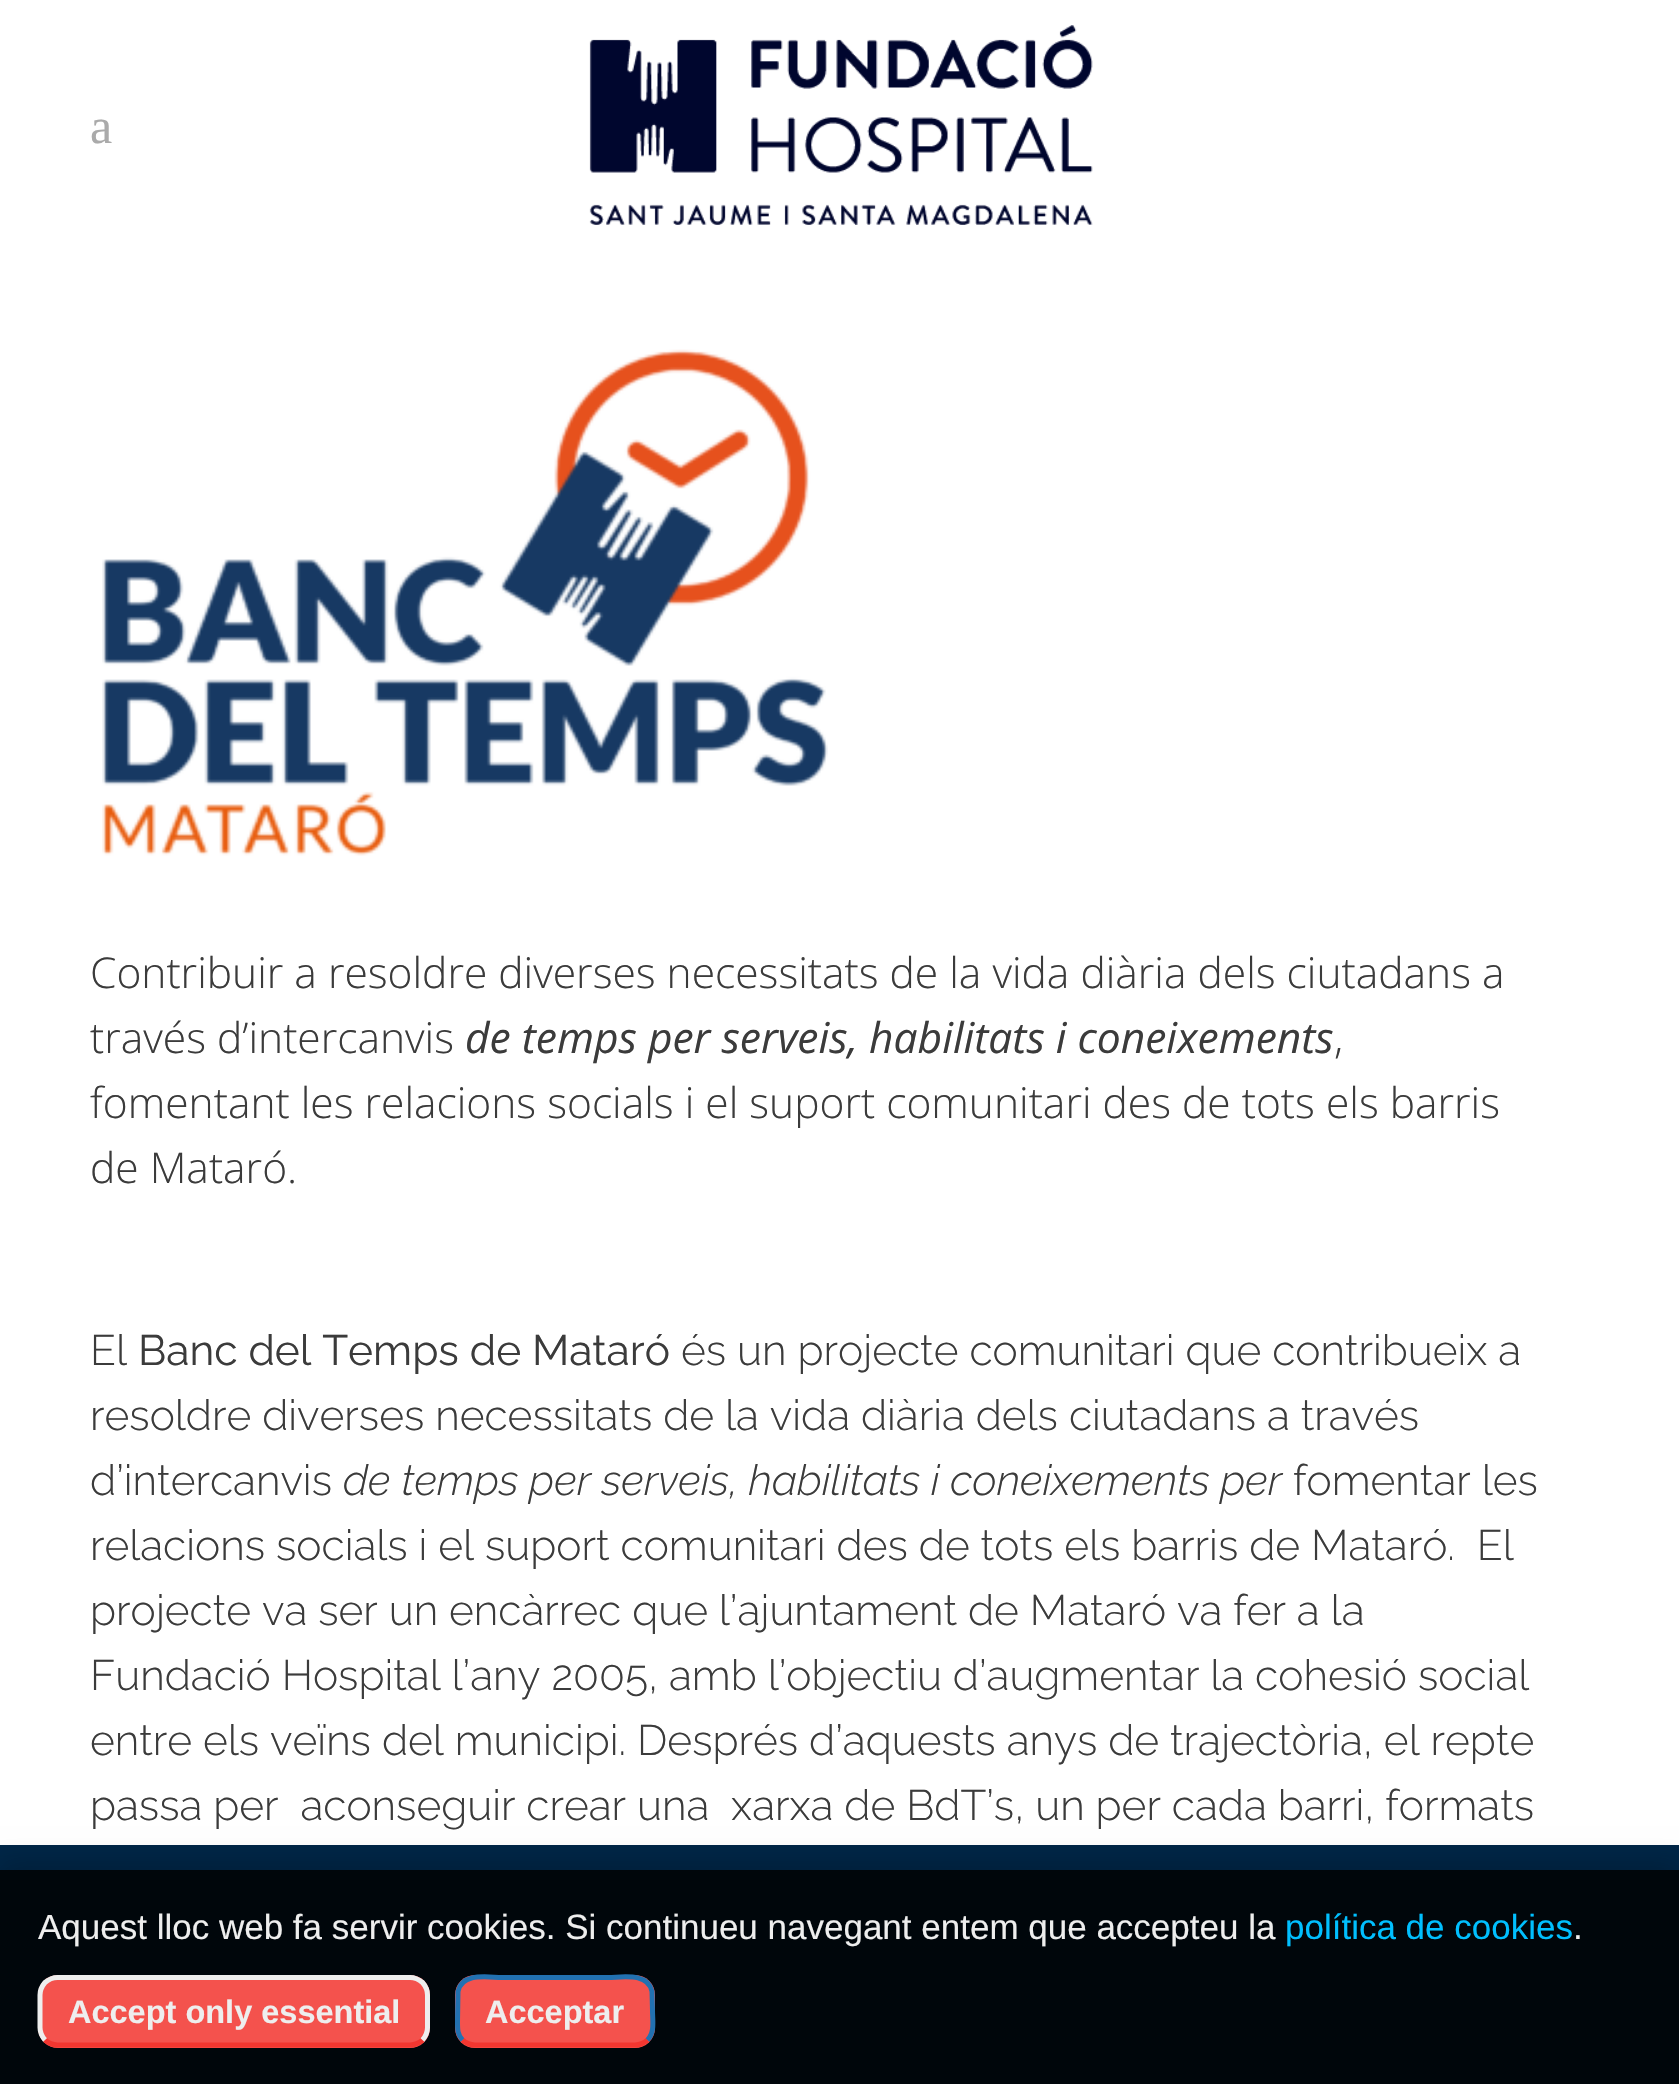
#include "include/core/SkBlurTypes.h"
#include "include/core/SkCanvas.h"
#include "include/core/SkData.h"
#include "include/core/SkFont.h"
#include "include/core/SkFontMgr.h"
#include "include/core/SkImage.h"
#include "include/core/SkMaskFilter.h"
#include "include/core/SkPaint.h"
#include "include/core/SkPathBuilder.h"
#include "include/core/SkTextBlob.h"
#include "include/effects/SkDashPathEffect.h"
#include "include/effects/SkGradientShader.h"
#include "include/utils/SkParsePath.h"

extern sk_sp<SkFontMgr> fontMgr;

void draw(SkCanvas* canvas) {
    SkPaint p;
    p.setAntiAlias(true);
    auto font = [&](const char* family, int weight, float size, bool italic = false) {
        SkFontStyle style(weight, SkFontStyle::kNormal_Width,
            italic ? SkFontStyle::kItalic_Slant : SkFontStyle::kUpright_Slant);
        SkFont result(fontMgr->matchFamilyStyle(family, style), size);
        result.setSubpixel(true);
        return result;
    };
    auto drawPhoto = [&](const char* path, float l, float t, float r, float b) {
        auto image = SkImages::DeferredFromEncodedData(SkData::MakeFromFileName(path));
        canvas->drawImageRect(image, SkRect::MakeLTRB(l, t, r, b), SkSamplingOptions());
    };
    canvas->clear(0xFFFFFFFF);
    auto font1 = font("Liberation Serif", 400, 50);
    p.setColor(0xFFAAAAAA);
    canvas->drawString("a", 90, 143, font1, p);
    drawPhoto("media/1.png", 589, 25, 1093, 225);
    drawPhoto("media/2.png", 102, 349, 828, 856);
    auto font2 = font("Open Sans", 300, 42.5f);
    p.setColor(0xFF3B3B3B);
    canvas->drawString("Contribuir a resoldre diverses necessitats de la vida diària dels ciutadans a", 90, 988, font2, p);
    canvas->drawString("través d’intercanvis", 90, 1053, font2, p);
    auto font3 = font("Open Sans", 400, 42.5f, true);
    canvas->drawString("de temps per serveis, habilitats i coneixements", 465, 1053, font3, p);
    {
        const struct { const char* s; float x, y; } items[] = {
            {",", 1334, 1053},
            {"fomentant les relacions socials i el suport comunitari des de tots els barris", 90, 1118},
            {"de Mataró.", 90, 1183},
        };
        for (auto [s, x, y] : items) {
            canvas->drawString(s, x, y, font2, p);
        }
    }
    auto font4 = font("Raleway", 300, 42.5f);
    canvas->drawString("El", 90, 1365, font4, p);
    auto font5 = font("Raleway", 400, 42.5f);
    canvas->drawString("Banc del Temps de Mataró", 138, 1365, font5, p);
    {
        const struct { const char* s; float x, y; } items[] = {
            {"és un projecte comunitari que contribueix a", 681, 1365},
            {"resoldre diverses necessitats de la vida diària dels ciutadans a través", 90, 1430},
            {"d’intercanvis", 90, 1495},
        };
        for (auto [s, x, y] : items) {
            canvas->drawString(s, x, y, font4, p);
        }
    }
    auto font6 = font("Raleway", 300, 42.5f, true);
    canvas->drawString("de temps per serveis, habilitats i coneixements per", 343, 1495, font6, p);
    {
        const struct { const char* s; float x, y; } items[] = {
            {"fomentar les", 1293, 1495},
            {"relacions socials i el suport comunitari des de tots els barris de Mataró.  El", 90, 1560},
            {"projecte va ser un encàrrec que l’ajuntament de Mataró va fer a la", 90, 1625},
            {"Fundació Hospital l’any 2005, amb l’objectiu d’augmentar la cohesió social", 90, 1690},
            {"entre els veïns del municipi. Després d’aquests anys de trajectòria, el repte", 90, 1755},
            {"passa per  aconseguir crear una  xarxa de BdT’s, un per cada barri, formats", 90, 1820},
        };
        for (auto [s, x, y] : items) {
            canvas->drawString(s, x, y, font4, p);
        }
    }
    p.setColor(0xFF002647);
    canvas->drawRect(SkRect::MakeLTRB(0, 1845, 1679, 1870), p);
    p.setColor(0x33000000);
    p.setMaskFilter(SkMaskFilter::MakeBlur(kNormal_SkBlurStyle, 12.5f));
    canvas->drawRect(SkRect::MakeLTRB(0, 1863, 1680, 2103), p);
    p.setMaskFilter(nullptr);
    p.setColor(0xFF00060B);
    canvas->drawRect(SkRect::MakeLTRB(0, 1870, 1679, 2084), p);
    auto font7 = font("Liberation Sans", 400, 35);
    p.setColor(0xFFEEEEEE);
    canvas->drawString("Aquest lloc web fa servir cookies. Si continueu navegant entem que accepteu la", 38, 1939, font7, p);
    p.setColor(0xFF00BFFF);
    canvas->drawString("política de cookies", 1285, 1939, font7, p);
    p.setColor(0xFFEEEEEE);
    canvas->drawString(".", 1573, 1939, font7, p);
    p.setColor(0xFFF4524D);
    canvas->drawRoundRect(SkRect::MakeLTRB(38, 1975, 430, 2048), 20, 20, p);
    p.setStyle(SkPaint::kStroke_Style);
    p.setStrokeWidth(5);
    p.setColor(0xFFF23630);
    canvas->drawPath(SkPathBuilder().moveTo(422.5f, 2040).cubicTo(419, 2043, 414.5f, 2045, 410, 2045).lineTo(57.5f, 2045).cubicTo(53, 2045, 48.5f, 2043, 45, 2040).detach(), p);
    p.setColor(0xFFEEEEEE);
    canvas->drawPath(SkPathBuilder().moveTo(45, 2040).cubicTo(42, 2036.5f, 40, 2032, 40, 2027.5f).lineTo(40, 1995).cubicTo(40, 1990.5f, 42, 1986, 45, 1982.5f).cubicTo(48.5f, 1979.5f, 53, 1977.5f, 57.5f, 1977.5f).lineTo(410, 1977.5f).cubicTo(414.5f, 1977.5f, 419, 1979.5f, 422.5f, 1982.5f).cubicTo(425.5f, 1986, 427.5f, 1990.5f, 427.5f, 1995).lineTo(427.5f, 2027.5f).cubicTo(427.5f, 2032, 425.5f, 2036.5f, 422.5f, 2040).detach(), p);
    auto font8 = font("Liberation Sans", 700, 32.5f);
    p.setStyle(SkPaint::kFill_Style);
    canvas->drawString("Accept only essential", 68, 2023, font8, p);
    p.setColor(0xFFF4524D);
    canvas->drawRoundRect(SkRect::MakeLTRB(455, 1975, 655, 2048), 20, 20, p);
    p.setStyle(SkPaint::kStroke_Style);
    p.setColor(0xFFF23630);
    canvas->drawPath(SkPathBuilder().moveTo(647.5f, 2040).cubicTo(644, 2043, 639.5f, 2045, 635, 2045).lineTo(475, 2045).cubicTo(470.5f, 2045, 466, 2043, 462.5f, 2040).detach(), p);
    p.setColor(0xFF2271B1);
    canvas->drawPath(SkPathBuilder().moveTo(462.5f, 2040).cubicTo(457.5f, 2035, 457.5f, 2029, 457.5f, 2022).lineTo(458, 1991.5f).cubicTo(462, 1972, 488.5f, 1977.5f, 501.5f, 1977.5f).lineTo(608.5f, 1977.5f).cubicTo(621.5f, 1977.5f, 648, 1972, 652, 1991.5f).lineTo(652.5f, 2011).cubicTo(652.5f, 2020.5f, 655, 2032.5f, 647.5f, 2040).detach(), p);
    p.setStyle(SkPaint::kFill_Style);
    p.setColor(0xFFEEEEEE);
    canvas->drawString("Acceptar", 485, 2023, font8, p);
}
